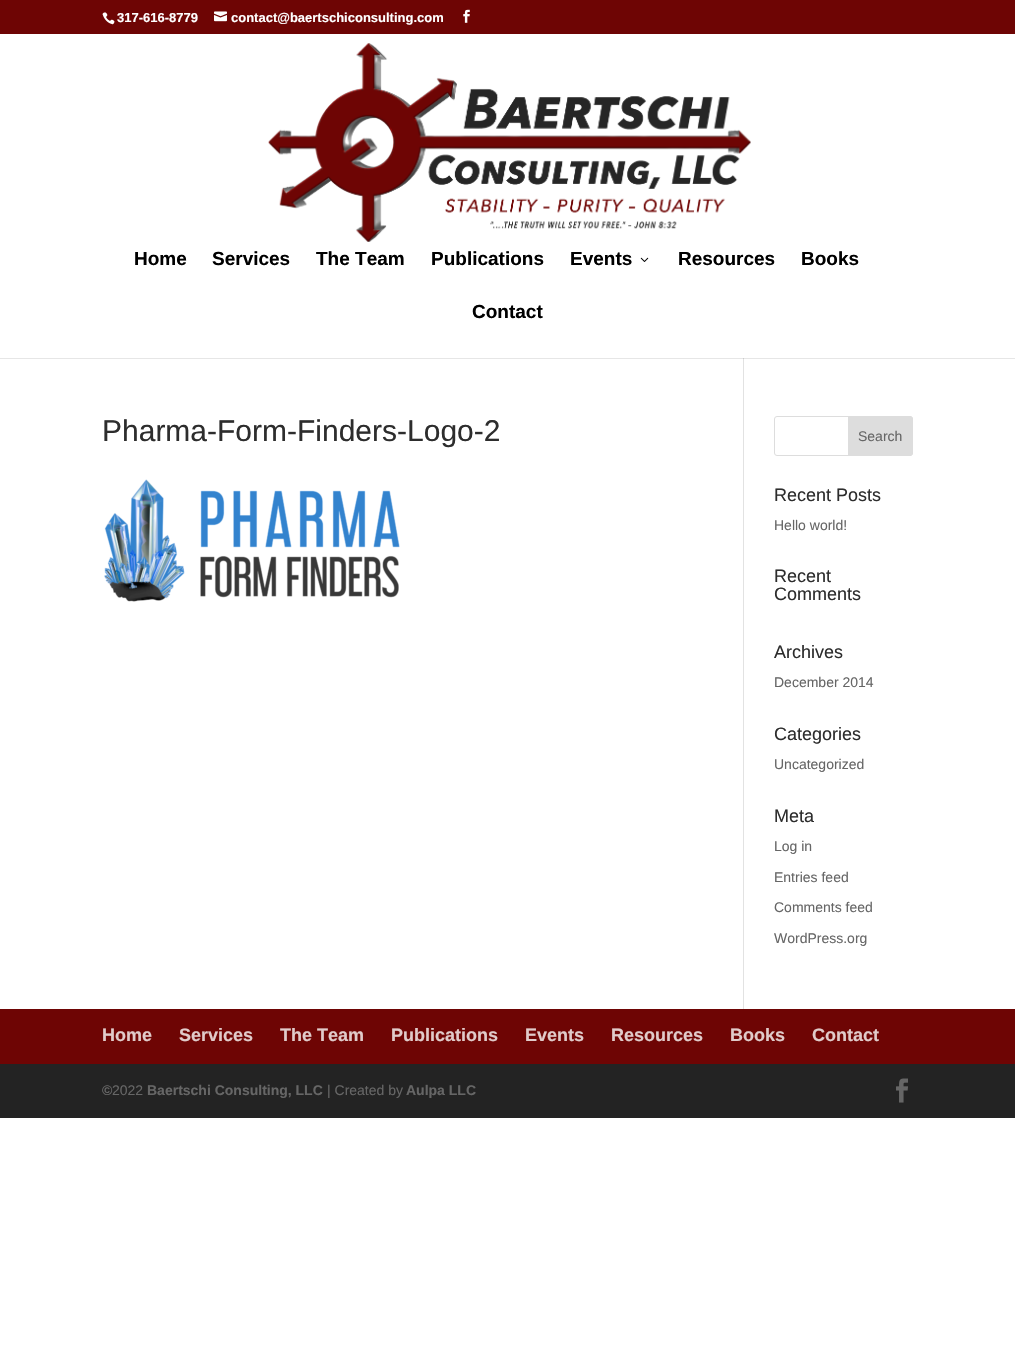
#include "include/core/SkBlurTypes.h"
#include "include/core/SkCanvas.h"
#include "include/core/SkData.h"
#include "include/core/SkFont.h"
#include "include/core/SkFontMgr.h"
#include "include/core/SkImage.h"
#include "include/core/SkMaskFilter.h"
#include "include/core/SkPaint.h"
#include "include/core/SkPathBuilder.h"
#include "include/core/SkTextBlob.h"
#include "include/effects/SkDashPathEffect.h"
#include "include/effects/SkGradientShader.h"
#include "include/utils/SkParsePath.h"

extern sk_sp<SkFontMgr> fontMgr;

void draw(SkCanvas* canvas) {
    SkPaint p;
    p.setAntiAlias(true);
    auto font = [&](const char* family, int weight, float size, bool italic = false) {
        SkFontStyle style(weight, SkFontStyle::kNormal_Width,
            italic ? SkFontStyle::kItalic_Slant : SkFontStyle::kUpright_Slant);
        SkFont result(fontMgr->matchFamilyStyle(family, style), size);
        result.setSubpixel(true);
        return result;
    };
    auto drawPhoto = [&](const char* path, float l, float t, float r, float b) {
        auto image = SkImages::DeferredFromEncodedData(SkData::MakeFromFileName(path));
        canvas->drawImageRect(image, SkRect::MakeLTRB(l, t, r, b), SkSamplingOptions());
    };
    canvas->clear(0xFFFFFFFF);
    p.setColor(0xFFE6E6E6);
    canvas->drawRect(SkRect::MakeLTRB(0, 358, 1015, 359), p);
    p.setColor(0xFF6E0504);
    canvas->drawRect(SkRect::MakeLTRB(0, 0, 1015, 34), p);
    drawPhoto("media/1.png", 102, 12, 115, 25);
    auto font1 = font("Liberation Sans", 700, 13);
    p.setColor(0xFFFFFFFF);
    canvas->drawString("317-616-8779", 117, 22, font1, p);
    drawPhoto("media/2.png", 214, 11, 227, 22);
    canvas->drawString("contact@baertschiconsulting.com", 231, 22, font1, p);
    drawPhoto("media/3.png", 463, 9, 470, 23);
    drawPhoto("media/4.png", 268, 43, 751, 242);
    auto font2 = font("Liberation Sans", 700, 19);
    p.setColor(0xFF000000);
    {
        const struct { const char* s; float x, y; } items[] = {
            {"Home", 134, 265},
            {"Services", 212, 265},
            {"The Team", 316, 265},
            {"Publications", 431, 265},
            {"Events", 570, 265},
        };
        for (auto [s, x, y] : items) {
            canvas->drawString(s, x, y, font2, p);
        }
    }
    drawPhoto("media/5.png", 640, 257, 649, 262);
    {
        const struct { const char* s; float x, y; } items[] = {
            {"Resources", 678, 265},
            {"Books", 801, 265},
            {"Contact", 472, 318},
        };
        for (auto [s, x, y] : items) {
            canvas->drawString(s, x, y, font2, p);
        }
    }
    p.setColor(0xFFE2E2E2);
    canvas->drawRect(SkRect::MakeLTRB(743, 358, 744, 1009), p);
    p.setColor(0xFFCBCBCB);
    canvas->drawRect(SkRect::MakeLTRB(743, 358, 744, 359), p);
    auto font3 = font("Liberation Sans", 400, 30);
    p.setColor(0xFF2D2D2D);
    canvas->drawString("Pharma-Form-Finders-Logo-2", 102, 441, font3, p);
    drawPhoto("media/6.png", 104, 479, 400, 602);
    p.setStyle(SkPaint::kStroke_Style);
    p.setStrokeWidth(1);
    p.setColor(0xFFDDDDDD);
    canvas->drawRoundRect(SkRect::MakeLTRB(774.5f, 416.5f, 912.5f, 455.5f), 2.5f, 2.5f, p);
    p.setStyle(SkPaint::kFill_Style);
    canvas->drawPath(SkPathBuilder().moveTo(848.5f, 416.5f).lineTo(910, 416.5f).cubicTo(911.5f, 416.5f, 912.5f, 417.5f, 912.5f, 419).lineTo(912.5f, 453).cubicTo(912.5f, 454.5f, 911.5f, 455.5f, 910, 455.5f).lineTo(848.5f, 455.5f).close().detach(), p);
    p.setStyle(SkPaint::kStroke_Style);
    canvas->drawPath(SkPathBuilder().moveTo(848.5f, 416.5f).lineTo(910, 416.5f).cubicTo(911.5f, 416.5f, 912.5f, 417.5f, 912.5f, 419).lineTo(912.5f, 453).cubicTo(912.5f, 454.5f, 911.5f, 455.5f, 910, 455.5f).lineTo(848.5f, 455.5f).close().detach(), p);
    auto font4 = font("Liberation Sans", 400, 14);
    p.setStyle(SkPaint::kFill_Style);
    p.setColor(0xFF666666);
    canvas->drawString("Search", 858, 441, font4, p);
    auto font5 = font("Liberation Sans", 400, 18);
    p.setColor(0xFF2D2D2D);
    canvas->drawString("Recent Posts", 774, 501, font5, p);
    p.setColor(0xFF666666);
    canvas->drawString("Hello world!", 774, 530, font4, p);
    p.setColor(0xFF2D2D2D);
    {
        const struct { const char* s; float x, y; } items[] = {
            {"Recent", 774, 582},
            {"Comments", 774, 600},
            {"Archives", 774, 658},
        };
        for (auto [s, x, y] : items) {
            canvas->drawString(s, x, y, font5, p);
        }
    }
    p.setColor(0xFF666666);
    canvas->drawString("December 2014", 774, 687, font4, p);
    p.setColor(0xFF2D2D2D);
    canvas->drawString("Categories", 774, 740, font5, p);
    p.setColor(0xFF666666);
    canvas->drawString("Uncategorized", 774, 769, font4, p);
    p.setColor(0xFF2D2D2D);
    canvas->drawString("Meta", 774, 822, font5, p);
    p.setColor(0xFF666666);
    {
        const struct { const char* s; float x, y; } items[] = {
            {"Log in", 774, 851},
            {"Entries feed", 774, 882},
            {"Comments feed", 774, 912},
            {"WordPress.org", 774, 943},
        };
        for (auto [s, x, y] : items) {
            canvas->drawString(s, x, y, font4, p);
        }
    }
    p.setColor(0xFF6E0504);
    canvas->drawRect(SkRect::MakeLTRB(0, 1009, 1015, 1064), p);
    auto font6 = font("Liberation Sans", 700, 18);
    p.setColor(0xFFE1CBCA);
    {
        const struct { const char* s; float x, y; } items[] = {
            {"Home", 102, 1041},
            {"Services", 179, 1041},
            {"The Team", 280, 1041},
            {"Publications", 391, 1041},
            {"Events", 525, 1041},
            {"Resources", 611, 1041},
            {"Books", 730, 1041},
            {"Contact", 812, 1041},
        };
        for (auto [s, x, y] : items) {
            canvas->drawString(s, x, y, font6, p);
        }
    }
    p.setColor(0xFF232323);
    canvas->drawRect(SkRect::MakeLTRB(0, 1064, 1015, 1118), p);
    auto font7 = font("Liberation Sans", 700, 14);
    p.setColor(0xFF666666);
    canvas->drawString("©", 102, 1095, font7, p);
    canvas->drawString("2022", 112, 1095, font4, p);
    canvas->drawString("Baertschi Consulting, LLC", 147, 1095, font7, p);
    canvas->drawString("| Created by", 327, 1095, font4, p);
    canvas->drawString("Aulpa LLC", 406, 1095, font7, p);
    drawPhoto("media/7.png", 896, 1078, 908, 1103);
}
